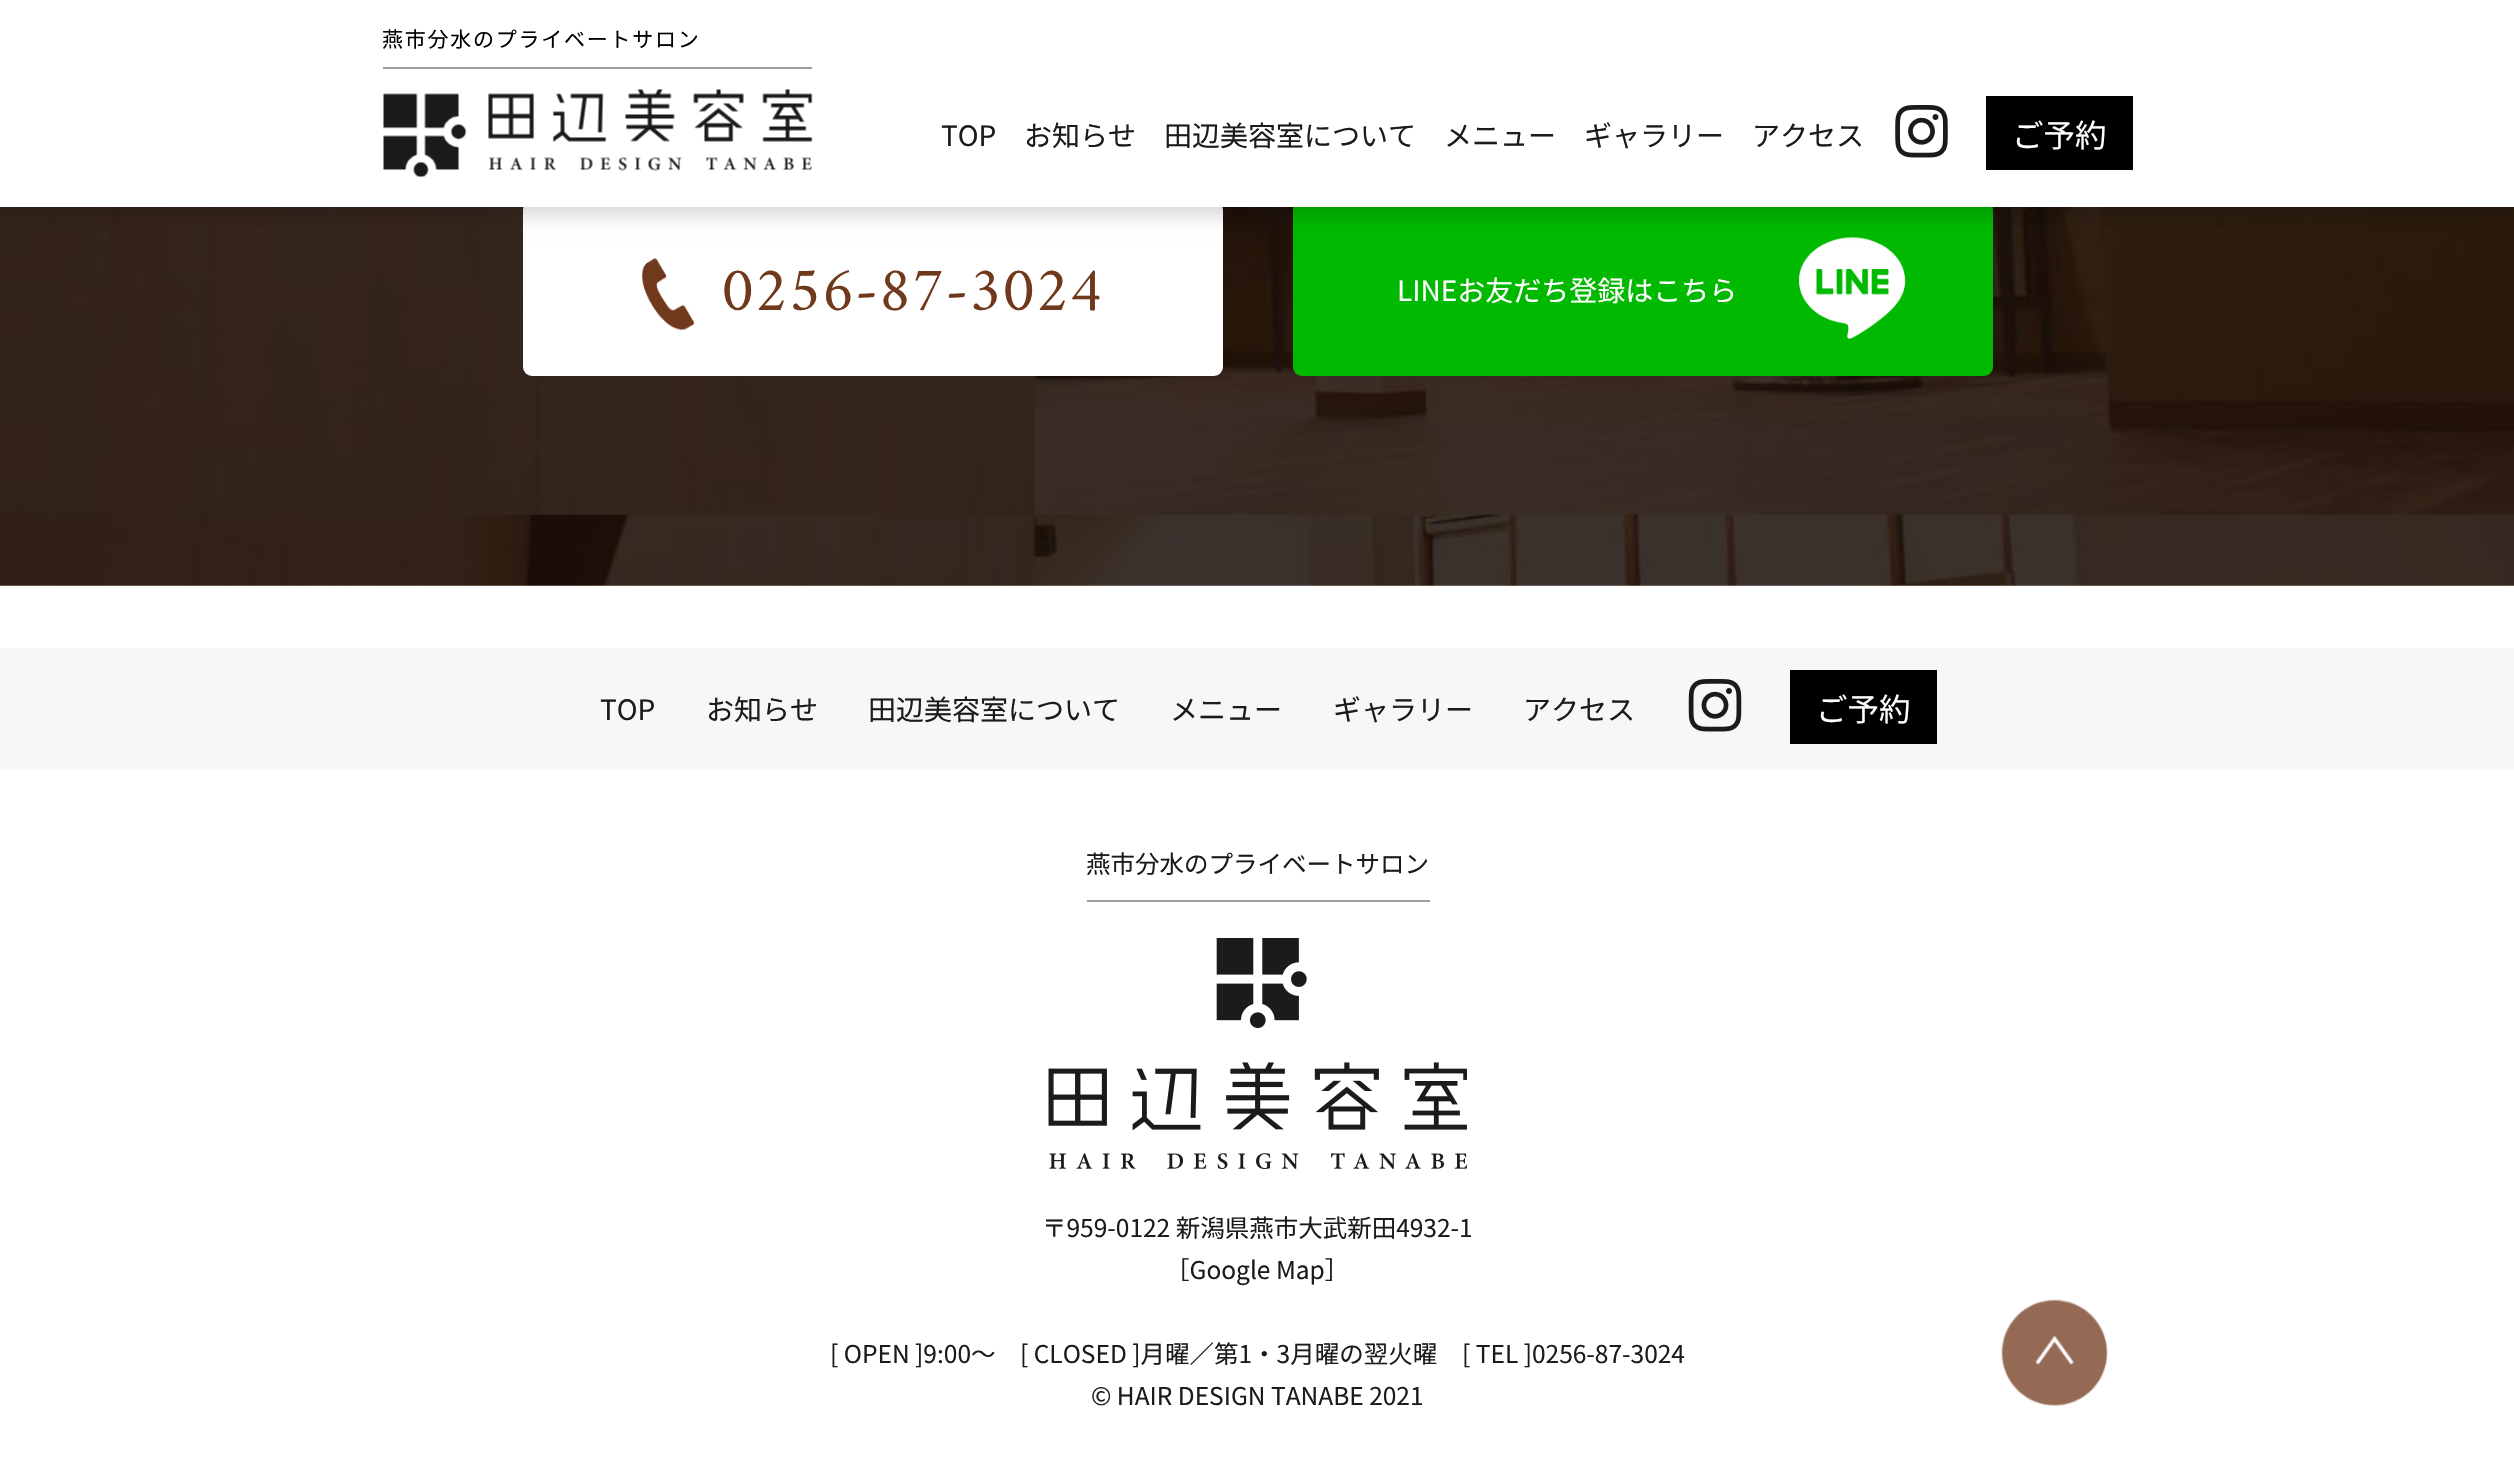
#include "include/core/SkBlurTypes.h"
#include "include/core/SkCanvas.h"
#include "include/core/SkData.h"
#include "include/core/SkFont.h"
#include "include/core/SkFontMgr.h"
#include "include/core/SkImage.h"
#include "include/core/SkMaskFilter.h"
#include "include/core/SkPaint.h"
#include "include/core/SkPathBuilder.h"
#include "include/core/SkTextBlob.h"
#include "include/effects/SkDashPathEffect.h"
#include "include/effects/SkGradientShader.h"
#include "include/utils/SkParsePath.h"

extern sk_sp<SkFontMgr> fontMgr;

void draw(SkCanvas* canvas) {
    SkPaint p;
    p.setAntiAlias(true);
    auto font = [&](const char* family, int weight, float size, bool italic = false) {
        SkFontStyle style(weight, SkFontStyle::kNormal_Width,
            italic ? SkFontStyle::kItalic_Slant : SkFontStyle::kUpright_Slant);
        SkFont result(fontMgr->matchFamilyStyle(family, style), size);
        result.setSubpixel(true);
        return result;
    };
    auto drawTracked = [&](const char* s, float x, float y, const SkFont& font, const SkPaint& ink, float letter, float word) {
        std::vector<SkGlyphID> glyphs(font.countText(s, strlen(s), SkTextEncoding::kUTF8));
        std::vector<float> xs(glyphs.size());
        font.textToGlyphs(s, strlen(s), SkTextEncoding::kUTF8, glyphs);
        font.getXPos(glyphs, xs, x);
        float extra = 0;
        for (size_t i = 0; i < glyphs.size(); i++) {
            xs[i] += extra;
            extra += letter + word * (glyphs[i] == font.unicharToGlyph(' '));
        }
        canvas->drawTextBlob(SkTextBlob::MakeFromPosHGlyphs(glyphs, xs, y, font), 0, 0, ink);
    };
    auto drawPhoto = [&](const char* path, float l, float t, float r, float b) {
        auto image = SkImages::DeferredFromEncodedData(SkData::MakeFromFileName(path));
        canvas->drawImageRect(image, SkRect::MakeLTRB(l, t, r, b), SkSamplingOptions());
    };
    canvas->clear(0xFFFFFFFF);
    drawPhoto("media/3.png", 0, 207, 2514, 586);
    p.setColor(0xFFFFFFFF);
    canvas->drawRoundRect(SkRect::MakeLTRB(523, 201, 1223, 376), 9, 9, p);
    p.setColor(0xFF00B900);
    canvas->drawRoundRect(SkRect::MakeLTRB(1293, 201, 1993, 376), 9, 9, p);
    drawPhoto("media/5.png", 1799, 237, 1906, 339);
    p.setColor(0x29000000);
    p.setMaskFilter(SkMaskFilter::MakeBlur(kNormal_SkBlurStyle, 9));
    canvas->drawRect(SkRect::MakeLTRB(0, 9, 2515, 215), p);
    p.setMaskFilter(nullptr);
    p.setColor(0xFFFFFFFF);
    canvas->drawRect(SkRect::MakeLTRB(0, 0, 2514, 207), p);
    p.setColor(0xFF9D9D9D);
    canvas->drawRect(SkRect::MakeLTRB(383, 67, 812, 69), p);
    auto font1 = font("Noto Sans JP", 400, 21);
    p.setColor(0xFF000000);
    drawTracked("燕市分水のプライベートサロン", 382, 47, font1, p, 1.75f, 0);
    drawPhoto("media/1.png", 383, 89, 813, 177);
    auto font2 = font("Noto Sans JP", 400, 28);
    p.setColor(0xFF1B1B1B);
    {
        const struct { const char* s; float x, y; } items[] = {
            {"TOP", 941, 146},
            {"お知らせ", 1024, 146},
            {"田辺美容室について", 1164, 146},
            {"メニュー", 1444, 146},
            {"ギャラリー", 1584, 146},
            {"アクセス", 1752, 146},
        };
        for (auto [s, x, y] : items) {
            canvas->drawString(s, x, y, font2, p);
        }
    }
    drawPhoto("media/2.png", 1895, 105, 1948, 158);
    p.setColor(0xFF000000);
    canvas->drawRect(SkRect::MakeLTRB(1986, 96, 2133, 170), p);
    auto font3 = font("Noto Sans JP", 400, 31.5f);
    p.setColor(0xFFFFFFFF);
    canvas->drawString("ご予約", 2012, 147, font3, p);
    drawPhoto("media/4.png", 642, 258, 694, 331);
    auto font4 = font("Amiri", 400, 63);
    p.setColor(0xFF71391C);
    canvas->drawString("0256-87-3024", 721, 310, font4, p);
    p.setColor(0xFFFFFFFF);
    canvas->drawString("LINEお友だち登録はこちら", 1397, 301, font2, p);
    p.setColor(0xFFF7F7F7);
    canvas->drawRect(SkRect::MakeLTRB(0, 648, 2514, 770), p);
    p.setColor(0xFF1B1B1B);
    {
        const struct { const char* s; float x, y; } items[] = {
            {"TOP", 600, 720},
            {"お知らせ", 706, 720},
            {"田辺美容室について", 868, 720},
            {"メニュー", 1170, 720},
            {"ギャラリー", 1333, 720},
            {"アクセス", 1523, 720},
        };
        for (auto [s, x, y] : items) {
            canvas->drawString(s, x, y, font2, p);
        }
    }
    drawPhoto("media/6.png", 1688, 679, 1742, 732);
    p.setColor(0xFF000000);
    canvas->drawRect(SkRect::MakeLTRB(1790, 670, 1937, 744), p);
    p.setColor(0xFFFFFFFF);
    canvas->drawString("ご予約", 1816, 721, font3, p);
    auto font5 = font("Noto Sans JP", 400, 24.5f);
    p.setColor(0xFF1B1B1B);
    canvas->drawString("燕市分水のプライベートサロン", 1086, 873, font5, p);
    p.setColor(0xFF9D9D9D);
    canvas->drawRect(SkRect::MakeLTRB(1087, 900, 1430, 902), p);
    drawPhoto("media/7.png", 1048, 938, 1467, 1169);
    p.setColor(0xFF1B1B1B);
    {
        const struct { const char* s; float x, y; } items[] = {
            {"〒959-0122 新潟県燕市大武新田4932-1", 1042, 1237},
            {"［Google Map］", 1165, 1279},
            {"[ OPEN ]9:00〜　[ CLOSED ]月曜／第1・3月曜の翌火曜", 830, 1363},
            {"[ TEL ]0256-87-3024", 1462, 1363},
            {"© HAIR DESIGN TANABE 2021", 1091, 1405},
        };
        for (auto [s, x, y] : items) {
            canvas->drawString(s, x, y, font5, p);
        }
    }
    drawPhoto("media/8.png", 2001, 1299, 2108, 1406);
}
